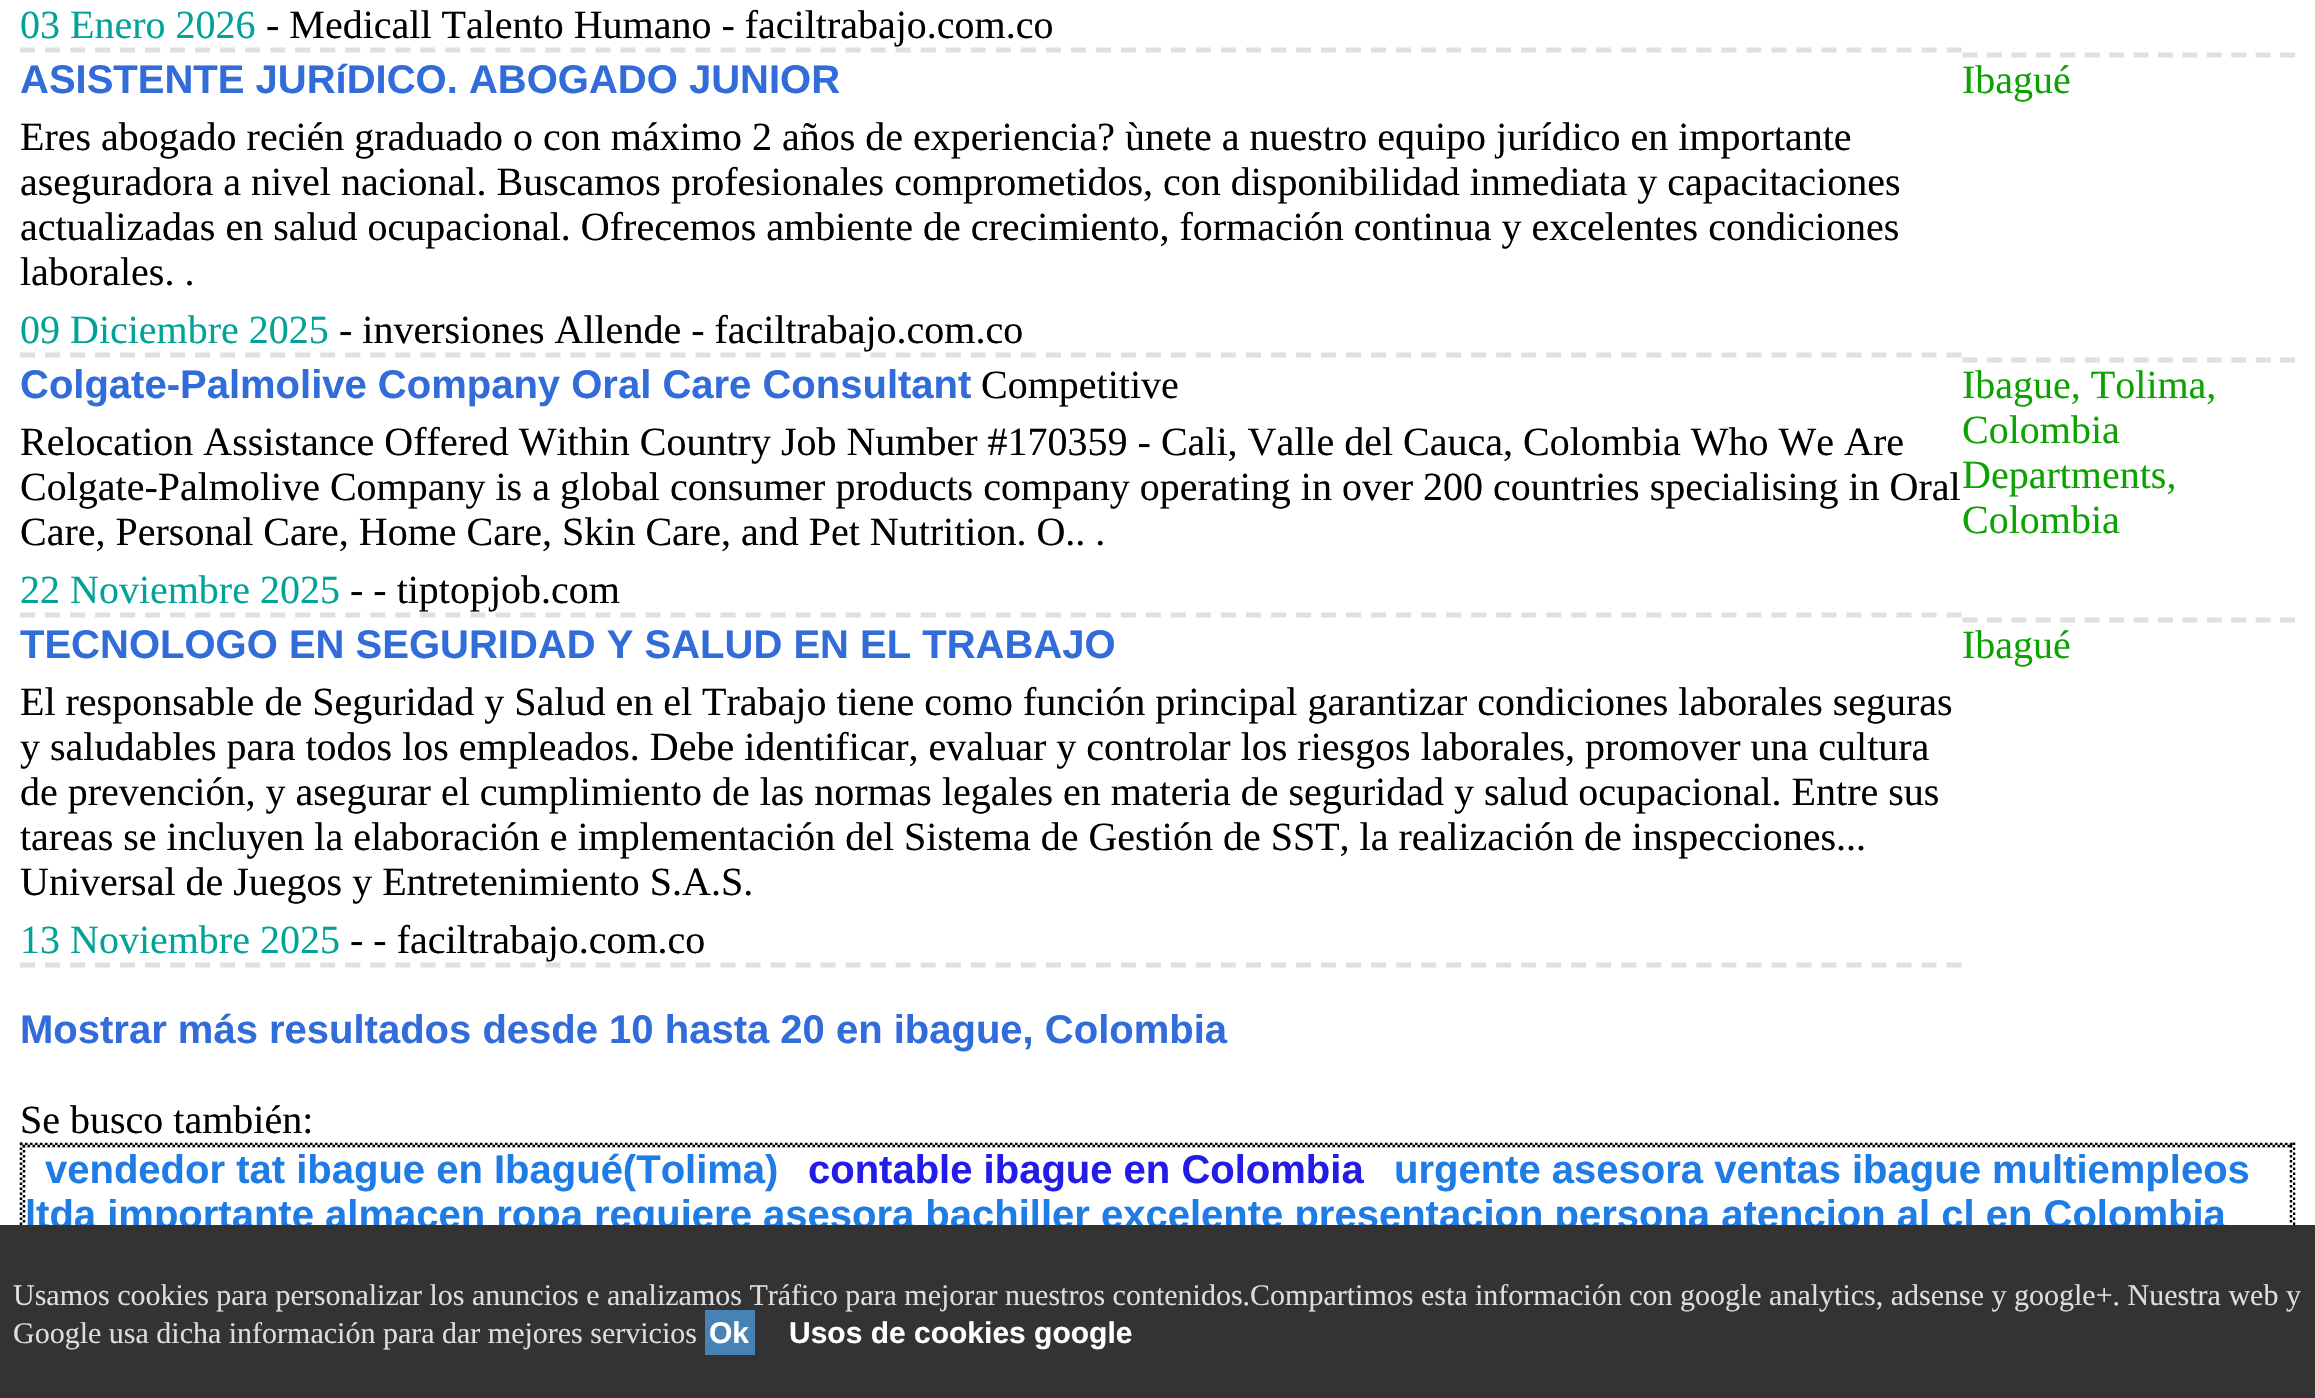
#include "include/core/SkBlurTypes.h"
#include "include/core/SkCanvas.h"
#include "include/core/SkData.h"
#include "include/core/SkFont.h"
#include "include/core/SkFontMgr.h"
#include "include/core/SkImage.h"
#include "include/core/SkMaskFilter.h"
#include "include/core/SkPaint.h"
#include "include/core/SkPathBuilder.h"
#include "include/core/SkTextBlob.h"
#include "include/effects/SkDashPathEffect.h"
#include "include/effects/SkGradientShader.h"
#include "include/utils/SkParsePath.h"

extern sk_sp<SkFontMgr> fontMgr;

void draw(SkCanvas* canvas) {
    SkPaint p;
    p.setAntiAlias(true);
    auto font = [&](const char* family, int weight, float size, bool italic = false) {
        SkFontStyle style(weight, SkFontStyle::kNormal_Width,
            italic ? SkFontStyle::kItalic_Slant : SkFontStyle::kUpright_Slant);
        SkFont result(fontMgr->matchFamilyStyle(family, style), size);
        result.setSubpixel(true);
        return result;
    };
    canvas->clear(0xFFFFFFFF);
    p.setStyle(SkPaint::kStroke_Style);
    p.setStrokeWidth(5);
    p.setColor(0xFFE0E0E0);
    p.setPathEffect(SkDashPathEffect::Make({{15, 10.02f}}, 0));
    canvas->drawPath(SkPathBuilder().moveTo(20, 50).lineTo(1962.5f, 50).detach(), p);
    p.setPathEffect(nullptr);
    auto font1 = font("Liberation Serif", 400, 40);
    p.setStyle(SkPaint::kFill_Style);
    p.setColor(0xFF01A297);
    canvas->drawString("03 Enero 2026", 20, 38, font1, p);
    p.setColor(0xFF000000);
    canvas->drawString("- Medicall Talento Humano - faciltrabajo.com.co", 266, 38, font1, p);
    p.setStyle(SkPaint::kStroke_Style);
    p.setColor(0xFFE0E0E0);
    p.setPathEffect(SkDashPathEffect::Make({{15, 10.02f}}, 0));
    canvas->drawPath(SkPathBuilder().moveTo(20, 355).lineTo(1962.5f, 355).detach(), p);
    p.setPathEffect(nullptr);
    auto font2 = font("Liberation Sans", 700, 40);
    p.setStyle(SkPaint::kFill_Style);
    p.setColor(0xFF326CD9);
    canvas->drawString("ASISTENTE JURíDICO. ABOGADO JUNIOR", 20, 93, font2, p);
    p.setColor(0xFF000000);
    {
        const struct { const char* s; float x, y; } items[] = {
            {"Eres abogado recién graduado o con máximo 2 años de experiencia? ùnete a nuestro equipo jurídico en importante", 20, 150},
            {"aseguradora a nivel nacional. Buscamos profesionales comprometidos, con disponibilidad inmediata y capacitaciones", 20, 195},
            {"actualizadas en salud ocupacional. Ofrecemos ambiente de crecimiento, formación continua y excelentes condiciones", 20, 240},
            {"laborales. .", 20, 285},
        };
        for (auto [s, x, y] : items) {
            canvas->drawString(s, x, y, font1, p);
        }
    }
    p.setColor(0xFF01A297);
    canvas->drawString("09 Diciembre 2025", 20, 343, font1, p);
    p.setColor(0xFF000000);
    canvas->drawString("- inversiones Allende - faciltrabajo.com.co", 339, 343, font1, p);
    p.setStyle(SkPaint::kStroke_Style);
    p.setColor(0xFFE0E0E0);
    p.setPathEffect(SkDashPathEffect::Make({{15, 9.43f}}, 0));
    canvas->drawPath(SkPathBuilder().moveTo(1962.5f, 55).lineTo(2295, 55).detach(), p);
    p.setPathEffect(nullptr);
    p.setStyle(SkPaint::kFill_Style);
    p.setColor(0xFF0CA201);
    canvas->drawString("Ibagué", 1962, 93, font1, p);
    p.setStyle(SkPaint::kStroke_Style);
    p.setColor(0xFFE0E0E0);
    p.setPathEffect(SkDashPathEffect::Make({{15, 10.02f}}, 0));
    canvas->drawPath(SkPathBuilder().moveTo(20, 615).lineTo(1962.5f, 615).detach(), p);
    p.setPathEffect(nullptr);
    p.setStyle(SkPaint::kFill_Style);
    p.setColor(0xFF326CD9);
    canvas->drawString("Colgate-Palmolive Company Oral Care Consultant", 20, 398, font2, p);
    p.setColor(0xFF000000);
    {
        const struct { const char* s; float x, y; } items[] = {
            {"Competitive", 981, 398},
            {"Relocation Assistance Offered Within Country Job Number #170359 - Cali, Valle del Cauca, Colombia Who We Are", 20, 455},
            {"Colgate-Palmolive Company is a global consumer products company operating in over 200 countries specialising in Oral", 20, 500},
            {"Care, Personal Care, Home Care, Skin Care, and Pet Nutrition. O.. .", 20, 545},
        };
        for (auto [s, x, y] : items) {
            canvas->drawString(s, x, y, font1, p);
        }
    }
    p.setColor(0xFF01A297);
    canvas->drawString("22 Noviembre 2025", 20, 603, font1, p);
    p.setColor(0xFF000000);
    canvas->drawString("- - tiptopjob.com", 350, 603, font1, p);
    p.setStyle(SkPaint::kStroke_Style);
    p.setColor(0xFFE0E0E0);
    p.setPathEffect(SkDashPathEffect::Make({{15, 9.43f}}, 0));
    canvas->drawPath(SkPathBuilder().moveTo(1962.5f, 360).lineTo(2295, 360).detach(), p);
    p.setPathEffect(nullptr);
    p.setStyle(SkPaint::kFill_Style);
    p.setColor(0xFF0CA201);
    {
        const struct { const char* s; float x, y; } items[] = {
            {"Ibague, Tolima,", 1962, 398},
            {"Colombia", 1962, 443},
            {"Departments,", 1962, 488},
            {"Colombia", 1962, 533},
        };
        for (auto [s, x, y] : items) {
            canvas->drawString(s, x, y, font1, p);
        }
    }
    p.setStyle(SkPaint::kStroke_Style);
    p.setColor(0xFFE0E0E0);
    p.setPathEffect(SkDashPathEffect::Make({{15, 10.02f}}, 0));
    canvas->drawPath(SkPathBuilder().moveTo(20, 965).lineTo(1962.5f, 965).detach(), p);
    p.setPathEffect(nullptr);
    p.setStyle(SkPaint::kFill_Style);
    p.setColor(0xFF326CD9);
    canvas->drawString("TECNOLOGO EN SEGURIDAD Y SALUD EN EL TRABAJO", 20, 658, font2, p);
    p.setColor(0xFF000000);
    {
        const struct { const char* s; float x, y; } items[] = {
            {"El responsable de Seguridad y Salud en el Trabajo tiene como función principal garantizar condiciones laborales seguras", 20, 715},
            {"y saludables para todos los empleados. Debe identificar, evaluar y controlar los riesgos laborales, promover una cultura", 20, 760},
            {"de prevención, y asegurar el cumplimiento de las normas legales en materia de seguridad y salud ocupacional. Entre sus", 20, 805},
            {"tareas se incluyen la elaboración e implementación del Sistema de Gestión de SST, la realización de inspecciones...", 20, 850},
            {"Universal de Juegos y Entretenimiento S.A.S.", 20, 895},
        };
        for (auto [s, x, y] : items) {
            canvas->drawString(s, x, y, font1, p);
        }
    }
    p.setColor(0xFF01A297);
    canvas->drawString("13 Noviembre 2025", 20, 953, font1, p);
    p.setColor(0xFF000000);
    canvas->drawString("- - faciltrabajo.com.co", 350, 953, font1, p);
    p.setStyle(SkPaint::kStroke_Style);
    p.setColor(0xFFE0E0E0);
    p.setPathEffect(SkDashPathEffect::Make({{15, 9.43f}}, 0));
    canvas->drawPath(SkPathBuilder().moveTo(1962.5f, 620).lineTo(2295, 620).detach(), p);
    p.setPathEffect(nullptr);
    p.setStyle(SkPaint::kFill_Style);
    p.setColor(0xFF0CA201);
    canvas->drawString("Ibagué", 1962, 658, font1, p);
    p.setColor(0xFF326CD9);
    canvas->drawString("Mostrar más resultados desde 10 hasta 20 en ibague, Colombia", 20, 1043, font2, p);
    p.setColor(0xFF000000);
    canvas->drawString("Se busco también:", 20, 1133, font1, p);
    {
        const SkColor colors[] = {0xFFFFFFFF, 0xFFF6F6F6, 0xFFEDEDED};
        const float stops[] = {0, 0.47f, 1};
        const SkPoint ends[] = {{1158, 512}, {1158, 1145}};
        p.setShader(SkGradientShader::MakeLinear(ends, colors, stops, 3, SkTileMode::kClamp));
        p.setAlpha(255);
    }
    canvas->drawRect(SkRect::MakeLTRB(20, 1143, 2295, 1145), p);
    p.setStyle(SkPaint::kStroke_Style);
    p.setStrokeWidth(2.5f);
    p.setShader(nullptr);
    p.setColor(0xFF000000);
    p.setPathEffect(SkDashPathEffect::Make({{2.5f, 2.5f}}, 0));
    canvas->drawPath(SkPathBuilder().moveTo(20, 1144).lineTo(2295, 1144).detach(), p);
    p.setPathEffect(nullptr);
    p.setPathEffect(SkDashPathEffect::Make({{2.5f, 2.5f}}, 0));
    canvas->drawPath(SkPathBuilder().moveTo(2294, 1142.5f).lineTo(2294, 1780).detach(), p);
    p.setPathEffect(nullptr);
    p.setPathEffect(SkDashPathEffect::Make({{2.5f, 2.5f}}, 0));
    canvas->drawPath(SkPathBuilder().moveTo(21, 1142.5f).lineTo(21, 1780).detach(), p);
    p.setPathEffect(nullptr);
    p.setStyle(SkPaint::kFill_Style);
    {
        const SkColor colors[] = {0xFFFFFFFF, 0xFFF6F6F6, 0xFFEDEDED};
        const float stops[] = {0, 0.47f, 1};
        const SkPoint ends[] = {{1158, 520}, {1158, 1148}};
        p.setShader(SkGradientShader::MakeLinear(ends, colors, stops, 3, SkTileMode::kClamp));
        p.setAlpha(255);
    }
    canvas->drawRect(SkRect::MakeLTRB(23, 1145, 2293, 1148), p);
    {
        const SkColor colors[] = {0xFFFFFFFF, 0xFFF6F6F6, 0xFFEDEDED};
        const float stops[] = {0, 0.47f, 1};
        const SkPoint ends[] = {{1158, 1147}, {1158, 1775}};
        p.setShader(SkGradientShader::MakeLinear(ends, colors, stops, 3, SkTileMode::kClamp));
        p.setAlpha(255);
    }
    canvas->drawRect(SkRect::MakeLTRB(2292, 1148, 2293, 1225), p);
    p.setStyle(SkPaint::kStroke_Style);
    p.setShader(nullptr);
    p.setColor(0xFF000000);
    p.setPathEffect(SkDashPathEffect::Make({{2.5f, 2.5f}}, 0));
    canvas->drawPath(SkPathBuilder().moveTo(22.5f, 1146).lineTo(2292.5f, 1146).detach(), p);
    p.setPathEffect(nullptr);
    p.setPathEffect(SkDashPathEffect::Make({{2.5f, 2.5f}}, 0));
    canvas->drawPath(SkPathBuilder().moveTo(2291, 1145).lineTo(2291, 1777.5f).detach(), p);
    p.setPathEffect(nullptr);
    p.setPathEffect(SkDashPathEffect::Make({{2.5f, 2.5f}}, 0));
    canvas->drawPath(SkPathBuilder().moveTo(24, 1145).lineTo(24, 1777.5f).detach(), p);
    p.setPathEffect(nullptr);
    p.setStyle(SkPaint::kFill_Style);
    p.setColor(0xFF207CE5);
    canvas->drawString("vendedor tat ibague en Ibagué(Tolima)", 45, 1183, font2, p);
    p.setColor(0xFF231CE6);
    canvas->drawString("contable ibague en Colombia", 808, 1183, font2, p);
    p.setColor(0xFF207CE5);
    canvas->drawString("urgente asesora ventas ibague multiempleos", 1394, 1183, font2, p);
    canvas->drawString("ltda importante almacen ropa requiere asesora bachiller excelente presentacion persona atencion al cl en Colombia", 25, 1228, font2, p);
    p.setColor(0xFF333333);
    canvas->drawRect(SkRect::MakeLTRB(0, 1225, 2315, 1398), p);
    auto font3 = font("Liberation Serif", 400, 30);
    p.setColor(0xFFDDDDDD);
    canvas->drawString("Usamos cookies para personalizar los anuncios e analizamos Tráfico para mejorar nuestros contenidos.Compartimos esta información con google analytics, adsense y google+. Nuestra web y", 13, 1305, font3, p);
    canvas->drawString("Google usa dicha información para dar mejores servicios", 13, 1343, font3, p);
    p.setColor(0xFF4682B4);
    canvas->drawRect(SkRect::MakeLTRB(705, 1310, 755, 1355), p);
    auto font4 = font("Liberation Sans", 700, 30);
    p.setColor(0xFFFFFFFF);
    canvas->drawString("Ok", 709, 1343, font4, p);
    canvas->drawString("Usos de cookies google", 789, 1343, font4, p);
}
